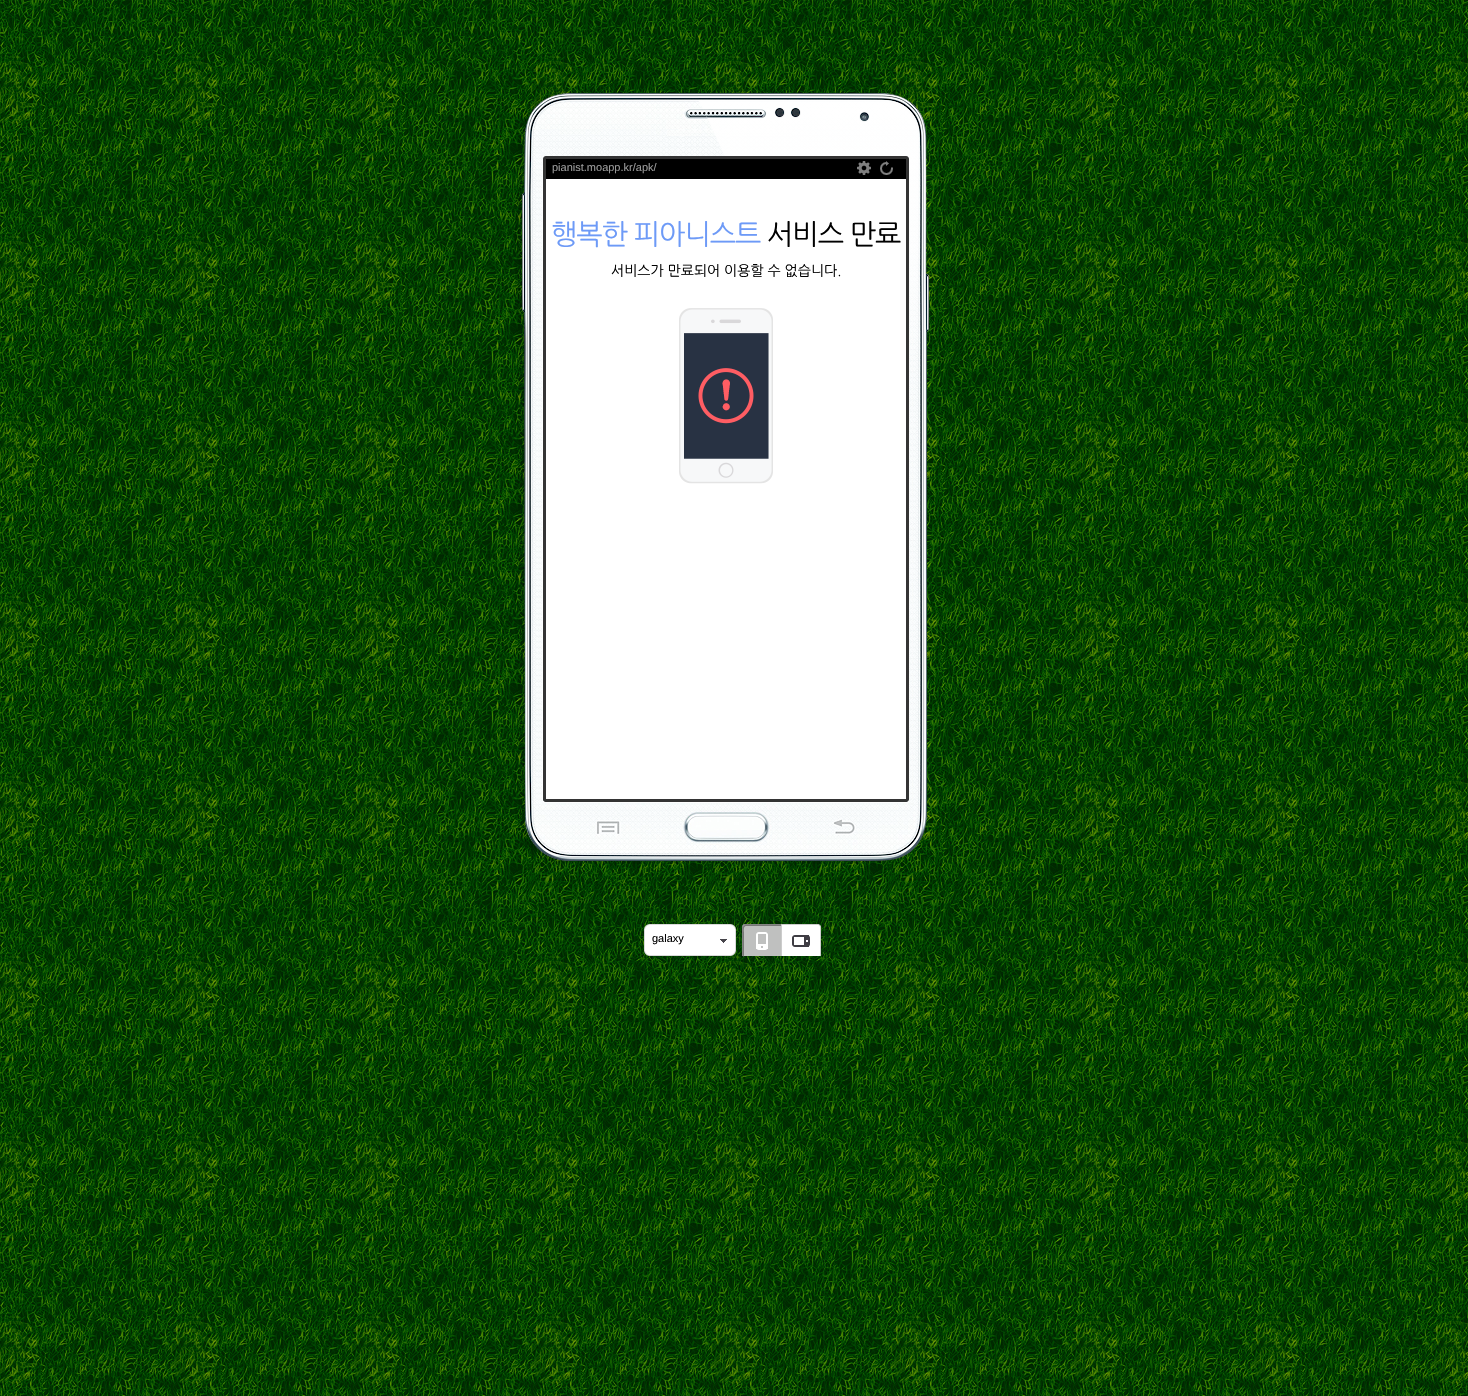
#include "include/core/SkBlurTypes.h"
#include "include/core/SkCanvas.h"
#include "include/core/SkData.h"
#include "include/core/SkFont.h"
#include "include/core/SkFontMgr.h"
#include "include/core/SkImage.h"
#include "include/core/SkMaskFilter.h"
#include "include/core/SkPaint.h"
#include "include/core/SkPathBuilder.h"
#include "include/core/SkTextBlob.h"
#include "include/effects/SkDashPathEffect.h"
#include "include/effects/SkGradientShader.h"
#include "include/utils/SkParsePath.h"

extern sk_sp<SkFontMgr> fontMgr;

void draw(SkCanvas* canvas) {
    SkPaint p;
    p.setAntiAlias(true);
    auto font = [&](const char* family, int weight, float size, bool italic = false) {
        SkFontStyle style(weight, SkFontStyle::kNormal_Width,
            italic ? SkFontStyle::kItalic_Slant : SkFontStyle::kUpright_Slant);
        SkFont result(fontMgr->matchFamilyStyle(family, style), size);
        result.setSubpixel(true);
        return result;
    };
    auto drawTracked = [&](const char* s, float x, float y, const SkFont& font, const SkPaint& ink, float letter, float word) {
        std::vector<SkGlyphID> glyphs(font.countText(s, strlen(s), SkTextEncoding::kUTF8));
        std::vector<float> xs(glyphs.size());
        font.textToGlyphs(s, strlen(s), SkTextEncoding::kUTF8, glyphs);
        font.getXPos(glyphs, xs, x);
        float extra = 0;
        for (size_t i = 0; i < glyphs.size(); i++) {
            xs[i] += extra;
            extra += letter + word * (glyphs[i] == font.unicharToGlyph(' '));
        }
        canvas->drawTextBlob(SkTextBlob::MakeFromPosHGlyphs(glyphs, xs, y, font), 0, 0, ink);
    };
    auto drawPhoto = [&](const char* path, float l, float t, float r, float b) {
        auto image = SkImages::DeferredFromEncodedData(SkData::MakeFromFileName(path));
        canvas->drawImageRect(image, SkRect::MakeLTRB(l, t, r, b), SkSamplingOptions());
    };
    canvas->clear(0xFFFFFFFF);
    drawPhoto("media/1.png", 0, 0, 1468, 1396);
    drawPhoto("media/2.png", 517, 91, 927, 159);
    drawPhoto("media/3.png", 515, 159, 546, 799);
    p.setColor(0xFF000000);
    canvas->drawRect(SkRect::MakeLTRB(546, 159, 906, 179), p);
    drawPhoto("media/4.png", 906, 159, 929, 799);
    auto font1 = font("Liberation Sans", 400, 11);
    p.setColor(0xFF9B9B9B);
    canvas->drawString("pianist.moapp.kr/apk/", 552, 171, font1, p);
    drawPhoto("media/5.png", 857, 161, 871, 175);
    drawPhoto("media/6.png", 880, 161, 893, 175);
    p.setColor(0xFFFFFFFF);
    canvas->drawRect(SkRect::MakeLTRB(546, 179, 906, 799), p);
    auto font2 = font("NanumGothic", 400, 28);
    p.setColor(0xFF6D9AF7);
    drawTracked("행복한 피아니스트", 551, 243, font2, p, -1, 0);
    p.setColor(0xFF000000);
    drawTracked("서비스 만료", 767, 243, font2, p, -1, 0);
    auto font3 = font("NanumGothic", 400, 14);
    canvas->drawString("서비스가 만료되어 이용할 수 없습니다.", 611, 275, font3, p);
    drawPhoto("media/7.png", 679, 308, 773, 484);
    drawPhoto("media/8.png", 518, 799, 927, 864);
    drawPhoto("media/9.png", 710, 924, 736, 956);
    drawPhoto("media/10.png", 644, 924, 710, 956);
    canvas->drawString("galaxy", 652, 942, font1, p);
    canvas->save();
    canvas->clipRect(SkRect::MakeLTRB(644, 924, 824, 956));
    p.setColor(0xFFBFC0BF);
    canvas->drawPath(SkPathBuilder().moveTo(745, 924).lineTo(782, 924).lineTo(782, 958).lineTo(745, 958).cubicTo(743.5f, 958, 742, 956.5f, 742, 955).lineTo(742, 927).cubicTo(742, 925.5f, 743.5f, 924, 745, 924).close().detach(), p);
    canvas->restore();
    p.setColor(0xFF777777);
    canvas->drawPath(SkPathBuilder().moveTo(746, 926).lineTo(781, 926).lineTo(781, 925).lineTo(745, 925).cubicTo(744, 925, 743, 926, 743, 927).lineTo(743, 955).cubicTo(743, 956, 743.5f, 956.5f, 744, 957).lineTo(744, 932.5f).cubicTo(744, 931.5f, 743, 926, 746, 926).close().detach(), p);
    canvas->save();
    canvas->clipRect(SkRect::MakeLTRB(644, 924, 824, 956));
    p.setStyle(SkPaint::kStroke_Style);
    p.setStrokeWidth(1);
    p.setColor(0xFF828382);
    canvas->drawPath(SkPathBuilder().moveTo(745, 924.5f).lineTo(781.5f, 924.5f).lineTo(781.5f, 957.5f).lineTo(745, 957.5f).cubicTo(743.5f, 957.5f, 742.5f, 956.5f, 742.5f, 955).lineTo(742.5f, 927).cubicTo(742.5f, 925.5f, 743.5f, 924.5f, 745, 924.5f).close().detach(), p);
    canvas->restore();
    drawPhoto("media/11.png", 756, 932, 768, 950);
    canvas->save();
    canvas->clipRect(SkRect::MakeLTRB(644, 924, 824, 956));
    p.setStyle(SkPaint::kFill_Style);
    p.setColor(0xFFFFFFFF);
    canvas->drawPath(SkPathBuilder().moveTo(781.5f, 924.5f).lineTo(818, 924.5f).cubicTo(819.5f, 924.5f, 820.5f, 925.5f, 820.5f, 927).lineTo(820.5f, 955).cubicTo(820.5f, 956.5f, 819.5f, 957.5f, 818, 957.5f).lineTo(781.5f, 957.5f).close().detach(), p);
    p.setStyle(SkPaint::kStroke_Style);
    p.setColor(0xFFCCCCCC);
    canvas->drawPath(SkPathBuilder().moveTo(781.5f, 924.5f).lineTo(818, 924.5f).cubicTo(819.5f, 924.5f, 820.5f, 925.5f, 820.5f, 927).lineTo(820.5f, 955).cubicTo(820.5f, 956.5f, 819.5f, 957.5f, 818, 957.5f).lineTo(781.5f, 957.5f).close().detach(), p);
    canvas->restore();
    drawPhoto("media/12.png", 792, 935, 810, 947);
}
